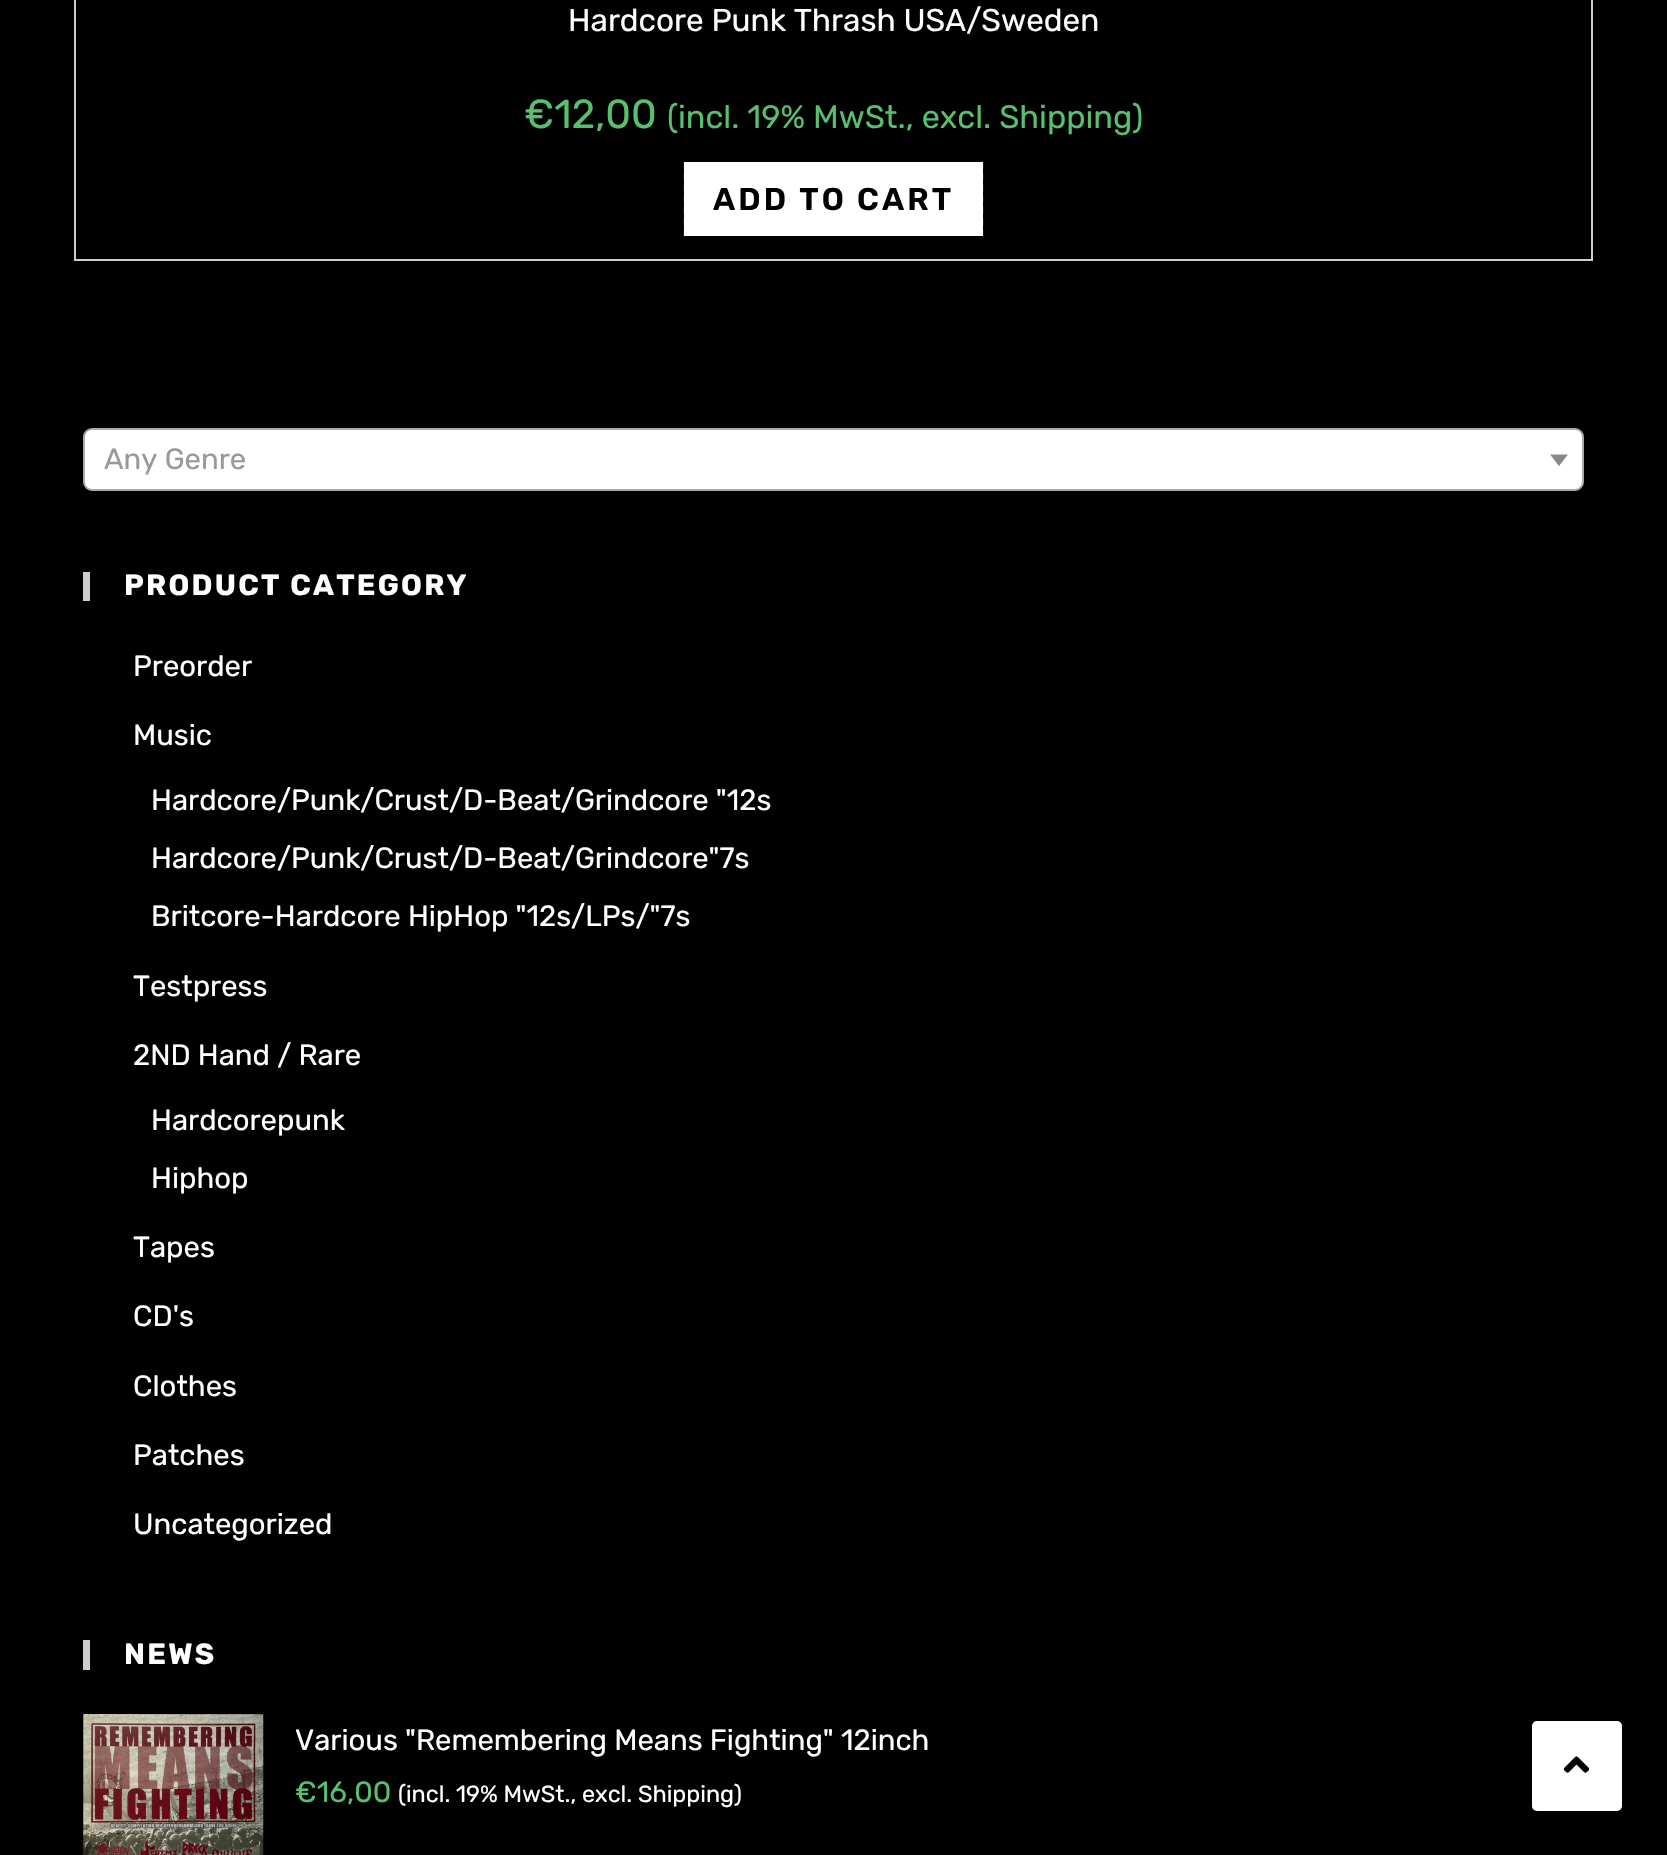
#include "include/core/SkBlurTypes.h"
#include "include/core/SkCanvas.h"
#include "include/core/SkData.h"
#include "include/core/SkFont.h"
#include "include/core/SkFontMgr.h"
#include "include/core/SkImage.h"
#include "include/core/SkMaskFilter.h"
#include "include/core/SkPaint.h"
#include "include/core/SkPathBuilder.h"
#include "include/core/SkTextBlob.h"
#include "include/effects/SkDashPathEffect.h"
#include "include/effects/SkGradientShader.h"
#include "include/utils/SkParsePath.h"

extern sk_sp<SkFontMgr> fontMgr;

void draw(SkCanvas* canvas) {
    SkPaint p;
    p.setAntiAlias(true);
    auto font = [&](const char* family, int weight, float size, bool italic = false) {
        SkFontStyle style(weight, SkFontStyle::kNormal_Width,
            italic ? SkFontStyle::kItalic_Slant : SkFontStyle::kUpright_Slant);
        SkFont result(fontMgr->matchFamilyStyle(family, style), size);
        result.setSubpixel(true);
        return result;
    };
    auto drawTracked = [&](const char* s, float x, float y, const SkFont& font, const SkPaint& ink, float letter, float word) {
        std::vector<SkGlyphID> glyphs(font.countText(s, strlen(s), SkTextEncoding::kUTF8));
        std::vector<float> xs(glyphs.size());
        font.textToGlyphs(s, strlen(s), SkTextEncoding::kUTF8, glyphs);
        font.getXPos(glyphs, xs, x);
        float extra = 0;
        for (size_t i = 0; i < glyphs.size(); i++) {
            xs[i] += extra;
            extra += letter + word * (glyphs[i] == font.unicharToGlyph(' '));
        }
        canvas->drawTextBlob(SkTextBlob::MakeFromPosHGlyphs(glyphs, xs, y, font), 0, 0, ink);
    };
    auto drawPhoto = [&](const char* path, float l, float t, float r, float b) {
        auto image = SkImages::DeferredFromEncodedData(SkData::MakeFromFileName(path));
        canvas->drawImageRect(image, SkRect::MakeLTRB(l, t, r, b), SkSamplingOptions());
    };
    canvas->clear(0xFF000000);
    p.setStyle(SkPaint::kStroke_Style);
    p.setStrokeWidth(2);
    p.setColor(0xFFCECECE);
    canvas->drawRect(SkRect::MakeLTRB(75, -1, 1592, 260), p);
    auto font1 = font("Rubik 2", 300, 31.5f);
    p.setStyle(SkPaint::kFill_Style);
    p.setColor(0xFFFFFFFF);
    canvas->drawString("Hardcore Punk Thrash USA/Sweden", 568, 31, font1, p);
    auto font2 = font("Rubik 2", 300, 40.5f);
    p.setColor(0xFF57BF6D);
    canvas->drawString("€12,00", 524, 128, font2, p);
    auto font3 = font("Rubik 2", 300, 32.4f);
    canvas->drawString("(incl. 19% MwSt., excl. Shipping)", 667, 128, font3, p);
    p.setColor(0xFFFFFFFF);
    canvas->drawRect(SkRect::MakeLTRB(684, 162, 983, 236), p);
    p.setStyle(SkPaint::kStroke_Style);
    p.setStrokeWidth(2.2f);
    p.setPathEffect(SkDashPathEffect::Make({{6.75f, 4.5f}}, 0));
    canvas->drawPath(SkPathBuilder().moveTo(684, 163).lineTo(983, 163).detach(), p);
    p.setPathEffect(nullptr);
    p.setPathEffect(SkDashPathEffect::Make({{6.75f, 4.5f}}, 0));
    canvas->drawPath(SkPathBuilder().moveTo(982, 162).lineTo(982, 236).detach(), p);
    p.setPathEffect(nullptr);
    p.setPathEffect(SkDashPathEffect::Make({{6.75f, 4.5f}}, 0));
    canvas->drawPath(SkPathBuilder().moveTo(684, 235).lineTo(983, 235).detach(), p);
    p.setPathEffect(nullptr);
    p.setPathEffect(SkDashPathEffect::Make({{6.75f, 4.5f}}, 0));
    canvas->drawPath(SkPathBuilder().moveTo(685, 162).lineTo(685, 236).detach(), p);
    p.setPathEffect(nullptr);
    auto font4 = font("Rubik", 600, 31.5f);
    p.setStyle(SkPaint::kFill_Style);
    p.setColor(0xFF000000);
    drawTracked("ADD TO CART", 713, 210, font4, p, 3.1f, 0);
    p.setColor(0xFFFFFFFF);
    canvas->drawRoundRect(SkRect::MakeLTRB(84, 429, 1583, 490), 8, 8, p);
    p.setStyle(SkPaint::kStroke_Style);
    p.setStrokeWidth(2);
    p.setColor(0xFFAAAAAA);
    canvas->drawRoundRect(SkRect::MakeLTRB(84, 429, 1583, 490), 8, 8, p);
    auto font5 = font("Rubik 2", 300, 29.25f);
    p.setStyle(SkPaint::kFill_Style);
    p.setColor(0xFF999999);
    canvas->drawString("Any Genre", 104, 469, font5, p);
    p.setColor(0xFF888888);
    canvas->drawPath(SkPathBuilder().moveTo(1550, 454.5f).lineTo(1568, 454.5f).lineTo(1559, 466).close().detach(), p);
    p.setColor(0xFFCECECE);
    canvas->drawRect(SkRect::MakeLTRB(83, 572, 90, 601), p);
    auto font6 = font("Rubik", 300, 29.25f);
    p.setColor(0xFFFFFFFF);
    drawTracked("PRODUCT CATEGORY", 124, 595, font6, p, 2.25f, 0);
    {
        const struct { const char* s; float x, y; } items[] = {
            {"Preorder", 133, 676},
            {"Music", 133, 745},
            {"Hardcore/Punk/Crust/D-Beat/Grindcore \"12s", 151, 810},
            {"Hardcore/Punk/Crust/D-Beat/Grindcore\"7s", 151, 868},
            {"Britcore-Hardcore HipHop \"12s/LPs/\"7s", 151, 926},
            {"Testpress", 133, 996},
            {"2ND Hand / Rare", 133, 1065},
            {"Hardcorepunk", 151, 1130},
            {"Hiphop", 151, 1188},
            {"Tapes", 133, 1257},
            {"CD's", 133, 1326},
            {"Clothes", 133, 1396},
            {"Patches", 133, 1465},
            {"Uncategorized", 133, 1534},
        };
        for (auto [s, x, y] : items) {
            canvas->drawString(s, x, y, font5, p);
        }
    }
    p.setColor(0xFFCECECE);
    canvas->drawRect(SkRect::MakeLTRB(83, 1640, 90, 1670), p);
    p.setColor(0xFFFFFFFF);
    drawTracked("NEWS", 124, 1664, font6, p, 2.25f, 0);
    drawPhoto("media/1.png", 83, 1714, 264, 1855);
    canvas->drawString("Various \"Remembering Means Fighting\" 12inch", 295, 1750, font5, p);
    p.setColor(0xFF57BF6D);
    canvas->drawString("€16,00", 295, 1802, font5, p);
    auto font7 = font("Rubik 2", 300, 23.4f);
    p.setColor(0xFFFFFFFF);
    canvas->drawString("(incl. 19% MwSt., excl. Shipping)", 398, 1802, font7, p);
    canvas->drawRoundRect(SkRect::MakeLTRB(1532, 1721, 1622, 1811), 5, 5, p);
    drawPhoto("media/2.png", 1563, 1756, 1590, 1773);
}
